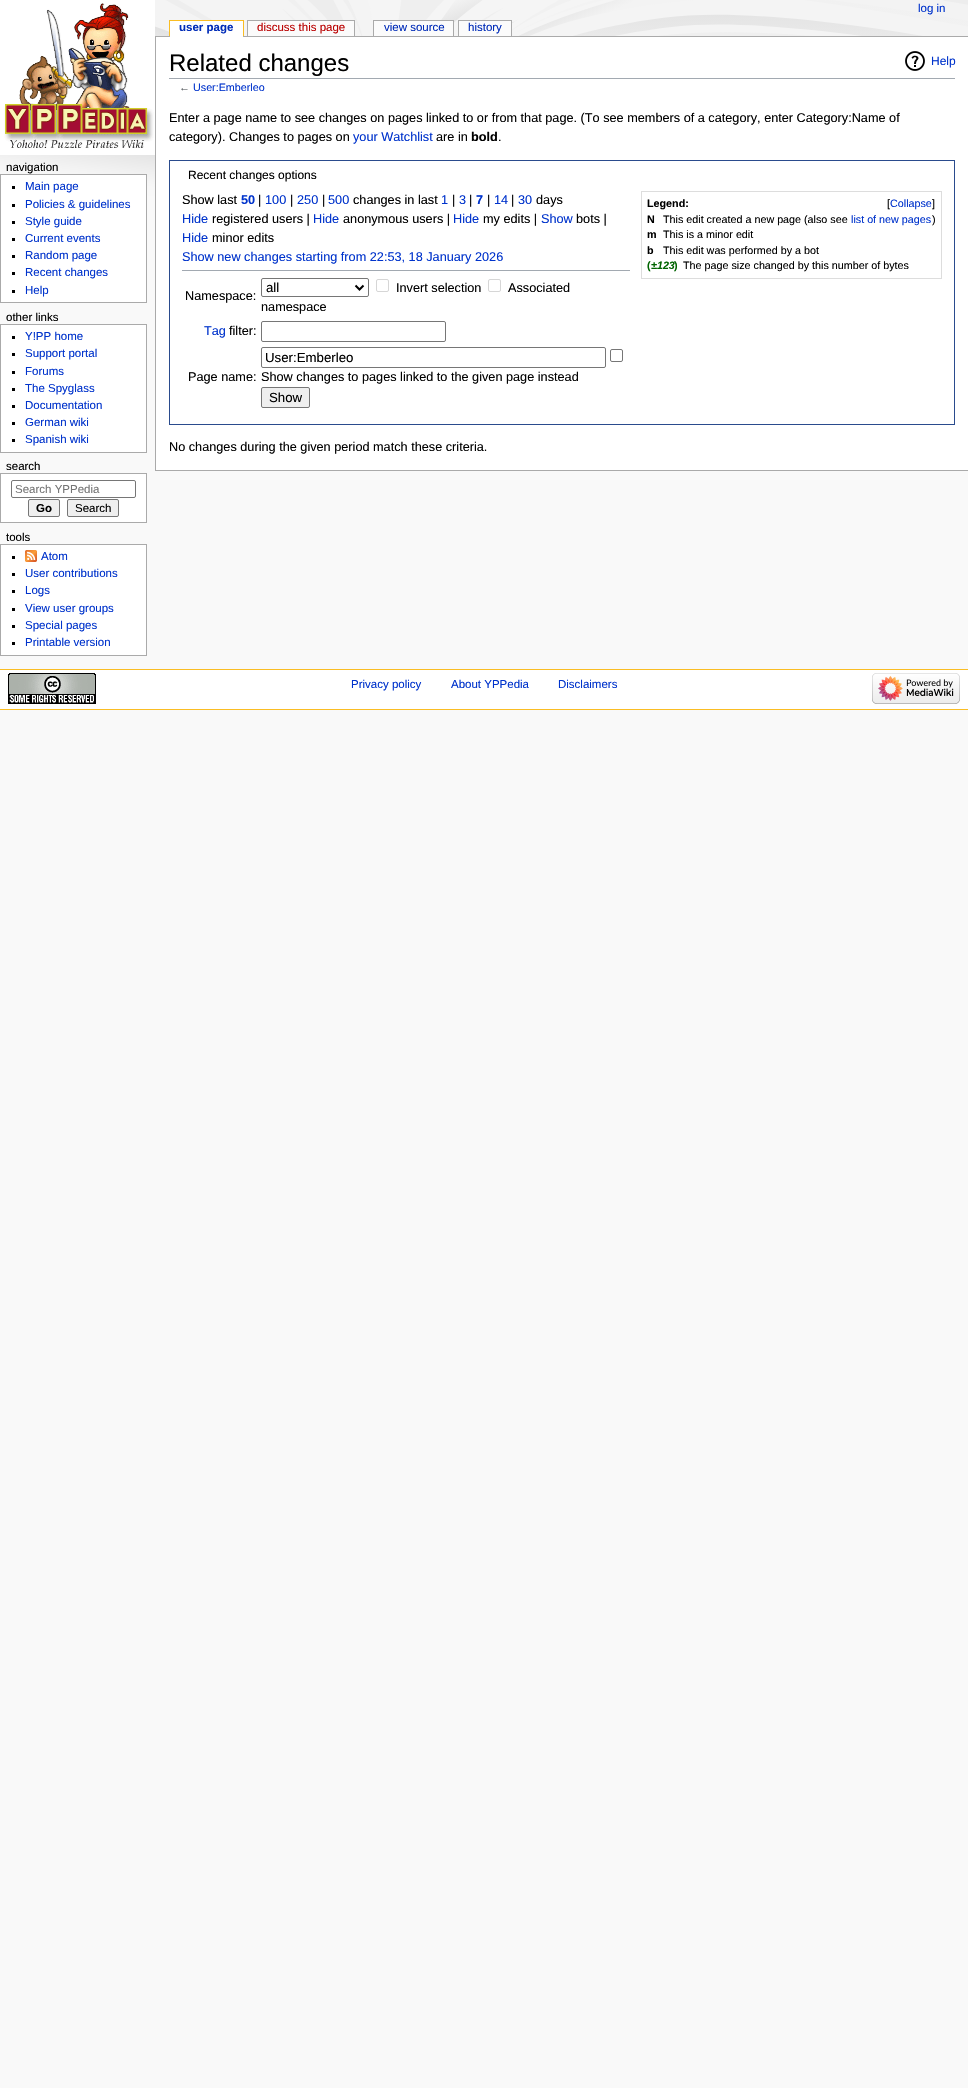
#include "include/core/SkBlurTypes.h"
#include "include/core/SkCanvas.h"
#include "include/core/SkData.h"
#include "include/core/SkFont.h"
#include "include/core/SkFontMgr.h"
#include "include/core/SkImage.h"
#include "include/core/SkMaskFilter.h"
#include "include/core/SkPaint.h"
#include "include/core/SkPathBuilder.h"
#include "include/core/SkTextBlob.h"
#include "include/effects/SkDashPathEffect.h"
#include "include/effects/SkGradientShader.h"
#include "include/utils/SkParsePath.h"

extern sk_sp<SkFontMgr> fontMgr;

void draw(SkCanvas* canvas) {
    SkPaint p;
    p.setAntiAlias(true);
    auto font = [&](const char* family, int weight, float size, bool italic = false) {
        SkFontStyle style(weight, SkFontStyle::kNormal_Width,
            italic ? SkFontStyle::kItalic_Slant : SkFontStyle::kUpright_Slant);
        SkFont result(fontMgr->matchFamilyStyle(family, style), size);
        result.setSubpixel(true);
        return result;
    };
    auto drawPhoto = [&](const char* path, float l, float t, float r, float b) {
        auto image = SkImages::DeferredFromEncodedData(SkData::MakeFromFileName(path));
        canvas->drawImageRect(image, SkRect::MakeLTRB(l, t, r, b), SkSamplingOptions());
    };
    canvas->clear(0xFFF9F9F9);
    drawPhoto("media/1.png", 0, 0, 968, 210);
    drawPhoto("media/2.png", 0, 0, 155, 155);
    auto font1 = font("Liberation Sans", 400, 11.5f);
    p.setColor(0xFF0033CC);
    canvas->drawString("log in", 918, 12, font1, p);
    p.setColor(0xFFAAAAAA);
    canvas->drawRect(SkRect::MakeLTRB(155, 36, 968, 37), p);
    p.setColor(0xFFFFFFFF);
    canvas->drawRect(SkRect::MakeLTRB(170, 21, 243, 37), p);
    auto font2 = font("Liberation Sans", 700, 11.5f);
    p.setColor(0xFF002BB8);
    canvas->drawString("user page", 179, 31, font2, p);
    {
        const struct { float l, t, r, b; SkColor color; } items[] = {
            {169, 20, 244, 21, 0xFFFABD23},
            {243, 20, 244, 36, 0xFFFABD23},
            {169, 20, 170, 36, 0xFFFABD23},
            {248, 21, 354, 36, 0xFFFBFBFB},
        };
        for (auto [l, t, r, b, color] : items) {
            p.setColor(color);
            canvas->drawRect(SkRect::MakeLTRB(l, t, r, b), p);
        }
    }
    p.setColor(0xFFBA0000);
    canvas->drawString("discuss this page", 257, 31, font1, p);
    {
        const struct { float l, t, r, b; SkColor color; } items[] = {
            {247, 20, 355, 21, 0xFFAAAAAA},
            {354, 20, 355, 36, 0xFFAAAAAA},
            {247, 20, 248, 36, 0xFFAAAAAA},
            {374, 21, 453, 36, 0xFFFBFBFB},
        };
        for (auto [l, t, r, b, color] : items) {
            p.setColor(color);
            canvas->drawRect(SkRect::MakeLTRB(l, t, r, b), p);
        }
    }
    p.setColor(0xFF002BB8);
    canvas->drawString("view source", 384, 31, font1, p);
    {
        const struct { float l, t, r, b; SkColor color; } items[] = {
            {373, 20, 454, 21, 0xFFAAAAAA},
            {453, 20, 454, 36, 0xFFAAAAAA},
            {373, 20, 374, 36, 0xFFAAAAAA},
            {459, 21, 511, 36, 0xFFFBFBFB},
        };
        for (auto [l, t, r, b, color] : items) {
            p.setColor(color);
            canvas->drawRect(SkRect::MakeLTRB(l, t, r, b), p);
        }
    }
    p.setColor(0xFF002BB8);
    canvas->drawString("history", 468, 31, font1, p);
    {
        const struct { float l, t, r, b; SkColor color; } items[] = {
            {458, 20, 512, 21, 0xFFAAAAAA},
            {511, 20, 512, 36, 0xFFAAAAAA},
            {458, 20, 459, 36, 0xFFAAAAAA},
        };
        for (auto [l, t, r, b, color] : items) {
            p.setColor(color);
            canvas->drawRect(SkRect::MakeLTRB(l, t, r, b), p);
        }
    }
    p.setColor(0xFF000000);
    canvas->drawString("navigation", 6, 171, font1, p);
    p.setColor(0xFFFFFFFF);
    canvas->drawRect(SkRect::MakeLTRB(0.5f, 174.5f, 146.5f, 302.5f), p);
    p.setStyle(SkPaint::kStroke_Style);
    p.setStrokeWidth(1);
    p.setColor(0xFFAAAAAA);
    canvas->drawRect(SkRect::MakeLTRB(0.5f, 174.5f, 146.5f, 302.5f), p);
    p.setStyle(SkPaint::kFill_Style);
    p.setColor(0xFF000000);
    canvas->drawRect(SkRect::MakeLTRB(12, 186, 15, 189), p);
    p.setColor(0xFF0033CC);
    canvas->drawString("Main page", 25, 190, font1, p);
    p.setColor(0xFF000000);
    canvas->drawRect(SkRect::MakeLTRB(12, 204, 15, 207), p);
    p.setColor(0xFF0033CC);
    canvas->drawString("Policies & guidelines", 25, 208, font1, p);
    p.setColor(0xFF000000);
    canvas->drawRect(SkRect::MakeLTRB(12, 221, 15, 224), p);
    p.setColor(0xFF0033CC);
    canvas->drawString("Style guide", 25, 225, font1, p);
    p.setColor(0xFF000000);
    canvas->drawRect(SkRect::MakeLTRB(12, 238, 15, 241), p);
    p.setColor(0xFF0033CC);
    canvas->drawString("Current events", 25, 242, font1, p);
    p.setColor(0xFF000000);
    canvas->drawRect(SkRect::MakeLTRB(12, 255, 15, 258), p);
    p.setColor(0xFF0033CC);
    canvas->drawString("Random page", 25, 259, font1, p);
    p.setColor(0xFF000000);
    canvas->drawRect(SkRect::MakeLTRB(12, 272, 15, 275), p);
    p.setColor(0xFF0033CC);
    canvas->drawString("Recent changes", 25, 276, font1, p);
    p.setColor(0xFF000000);
    canvas->drawRect(SkRect::MakeLTRB(12, 290, 15, 293), p);
    p.setColor(0xFF0033CC);
    canvas->drawString("Help", 25, 294, font1, p);
    p.setColor(0xFF000000);
    canvas->drawString("other links", 6, 321, font1, p);
    p.setColor(0xFFFFFFFF);
    canvas->drawRect(SkRect::MakeLTRB(0.5f, 324.5f, 146.5f, 452.5f), p);
    p.setStyle(SkPaint::kStroke_Style);
    p.setColor(0xFFAAAAAA);
    canvas->drawRect(SkRect::MakeLTRB(0.5f, 324.5f, 146.5f, 452.5f), p);
    p.setStyle(SkPaint::kFill_Style);
    p.setColor(0xFF000000);
    canvas->drawRect(SkRect::MakeLTRB(12, 336, 15, 339), p);
    p.setColor(0xFF0033CC);
    canvas->drawString("Y!PP home", 25, 340, font1, p);
    p.setColor(0xFF000000);
    canvas->drawRect(SkRect::MakeLTRB(12, 353, 15, 356), p);
    p.setColor(0xFF0033CC);
    canvas->drawString("Support portal", 25, 357, font1, p);
    p.setColor(0xFF000000);
    canvas->drawRect(SkRect::MakeLTRB(12, 371, 15, 374), p);
    p.setColor(0xFF0033CC);
    canvas->drawString("Forums", 25, 375, font1, p);
    p.setColor(0xFF000000);
    canvas->drawRect(SkRect::MakeLTRB(12, 388, 15, 391), p);
    p.setColor(0xFF0033CC);
    canvas->drawString("The Spyglass", 25, 392, font1, p);
    p.setColor(0xFF000000);
    canvas->drawRect(SkRect::MakeLTRB(12, 405, 15, 408), p);
    p.setColor(0xFF0033CC);
    canvas->drawString("Documentation", 25, 409, font1, p);
    p.setColor(0xFF000000);
    canvas->drawRect(SkRect::MakeLTRB(12, 422, 15, 425), p);
    p.setColor(0xFF0033CC);
    canvas->drawString("German wiki", 25, 426, font1, p);
    p.setColor(0xFF000000);
    canvas->drawRect(SkRect::MakeLTRB(12, 439, 15, 442), p);
    p.setColor(0xFF0033CC);
    canvas->drawString("Spanish wiki", 25, 443, font1, p);
    p.setColor(0xFF000000);
    canvas->drawString("search", 6, 470, font1, p);
    p.setColor(0xFFFFFFFF);
    canvas->drawRect(SkRect::MakeLTRB(0.5f, 473.5f, 146.5f, 522.5f), p);
    p.setStyle(SkPaint::kStroke_Style);
    p.setColor(0xFFAAAAAA);
    canvas->drawRect(SkRect::MakeLTRB(0.5f, 473.5f, 146.5f, 522.5f), p);
    p.setColor(0xFF767676);
    canvas->drawRoundRect(SkRect::MakeLTRB(11.5f, 480.5f, 135.5f, 497.5f), 1.5f, 1.5f, p);
    p.setStyle(SkPaint::kFill_Style);
    p.setColor(0xFF757575);
    canvas->drawString("Search YPPedia", 15, 493, font1, p);
    p.setColor(0xFFEFEFEF);
    canvas->drawRoundRect(SkRect::MakeLTRB(28.5f, 499.5f, 59.5f, 516.5f), 1.5f, 1.5f, p);
    p.setStyle(SkPaint::kStroke_Style);
    p.setColor(0xFF767676);
    canvas->drawRoundRect(SkRect::MakeLTRB(28.5f, 499.5f, 59.5f, 516.5f), 1.5f, 1.5f, p);
    p.setStyle(SkPaint::kFill_Style);
    p.setColor(0xFF000000);
    canvas->drawString("Go", 36, 512, font2, p);
    p.setColor(0xFFEFEFEF);
    canvas->drawRoundRect(SkRect::MakeLTRB(67.5f, 499.5f, 118.5f, 516.5f), 1.5f, 1.5f, p);
    p.setStyle(SkPaint::kStroke_Style);
    p.setColor(0xFF767676);
    canvas->drawRoundRect(SkRect::MakeLTRB(67.5f, 499.5f, 118.5f, 516.5f), 1.5f, 1.5f, p);
    p.setStyle(SkPaint::kFill_Style);
    p.setColor(0xFF000000);
    canvas->drawString("Search", 75, 512, font1, p);
    canvas->drawString("tools", 6, 541, font1, p);
    p.setColor(0xFFFFFFFF);
    canvas->drawRect(SkRect::MakeLTRB(0.5f, 544.5f, 146.5f, 655.5f), p);
    p.setStyle(SkPaint::kStroke_Style);
    p.setColor(0xFFAAAAAA);
    canvas->drawRect(SkRect::MakeLTRB(0.5f, 544.5f, 146.5f, 655.5f), p);
    p.setStyle(SkPaint::kFill_Style);
    p.setColor(0xFF000000);
    canvas->drawRect(SkRect::MakeLTRB(12, 556, 15, 559), p);
    drawPhoto("media/3.png", 25, 550, 37, 562);
    p.setColor(0xFF0033CC);
    canvas->drawString("Atom", 41, 560, font1, p);
    p.setColor(0xFF000000);
    canvas->drawRect(SkRect::MakeLTRB(12, 573, 15, 576), p);
    p.setColor(0xFF0033CC);
    canvas->drawString("User contributions", 25, 577, font1, p);
    p.setColor(0xFF000000);
    canvas->drawRect(SkRect::MakeLTRB(12, 590, 15, 593), p);
    p.setColor(0xFF0033CC);
    canvas->drawString("Logs", 25, 594, font1, p);
    p.setColor(0xFF000000);
    canvas->drawRect(SkRect::MakeLTRB(12, 608, 15, 611), p);
    p.setColor(0xFF0033CC);
    canvas->drawString("View user groups", 25, 612, font1, p);
    p.setColor(0xFF000000);
    canvas->drawRect(SkRect::MakeLTRB(12, 625, 15, 628), p);
    p.setColor(0xFF0033CC);
    canvas->drawString("Special pages", 25, 629, font1, p);
    p.setColor(0xFF000000);
    canvas->drawRect(SkRect::MakeLTRB(12, 642, 15, 645), p);
    p.setColor(0xFF0033CC);
    canvas->drawString("Printable version", 25, 646, font1, p);
    {
        const struct { float l, t, r, b; SkColor color; } items[] = {
            {156, 37, 968, 470, 0xFFFFFFFF},
            {155, 470, 968, 471, 0xFFAAAAAA},
            {155, 36, 156, 471, 0xFFAAAAAA},
            {169, 78, 955, 79, 0xFFA2A9B1},
        };
        for (auto [l, t, r, b, color] : items) {
            p.setColor(color);
            canvas->drawRect(SkRect::MakeLTRB(l, t, r, b), p);
        }
    }
    auto font3 = font("Liberation Sans", 400, 24);
    p.setColor(0xFF000000);
    canvas->drawString("Related changes", 169, 71, font3, p);
    drawPhoto("media/4.png", 905, 51, 925, 71);
    auto font4 = font("Liberation Sans", 400, 12);
    p.setColor(0xFF0033CC);
    canvas->drawString("Help", 931, 65, font4, p);
    auto font5 = font("Liberation Sans", 400, 10.75f);
    p.setColor(0xFF54595D);
    canvas->drawString("←", 179, 91, font5, p);
    p.setColor(0xFF0033CC);
    canvas->drawString("User:Emberleo", 193, 91, font5, p);
    auto font6 = font("Liberation Sans", 400, 12.7f);
    p.setColor(0xFF000000);
    canvas->drawString("Enter a page name to see changes on pages linked to or from that page. (To see members of a category, enter Category:Name of", 169, 122, font6, p);
    canvas->drawString("category). Changes to pages on", 169, 141, font6, p);
    p.setColor(0xFF0033CC);
    canvas->drawString("your Watchlist", 353, 141, font6, p);
    p.setColor(0xFF000000);
    canvas->drawString("are in", 436, 141, font6, p);
    auto font7 = font("Liberation Sans", 700, 12.7f);
    canvas->drawString("bold", 471, 141, font7, p);
    canvas->drawString(".", 498, 141, font6, p);
    p.setStyle(SkPaint::kStroke_Style);
    p.setColor(0xFF2A4B8D);
    canvas->drawRect(SkRect::MakeLTRB(169.5f, 160.5f, 954.5f, 424.5f), p);
    p.setStyle(SkPaint::kFill_Style);
    p.setColor(0xFF000000);
    canvas->drawString("Recent changes options", 188, 179, font4, p);
    canvas->drawString("Show last", 182, 204, font6, p);
    p.setColor(0xFF0033CC);
    canvas->drawString("50", 241, 204, font7, p);
    p.setColor(0xFF000000);
    canvas->drawString("|", 258, 204, font6, p);
    p.setColor(0xFF0033CC);
    canvas->drawString("100", 265, 204, font6, p);
    p.setColor(0xFF000000);
    canvas->drawString("|", 290, 204, font6, p);
    p.setColor(0xFF0033CC);
    canvas->drawString("250", 297, 204, font6, p);
    p.setColor(0xFF000000);
    canvas->drawString("|", 322, 204, font6, p);
    p.setColor(0xFF0033CC);
    canvas->drawString("500", 328, 204, font6, p);
    p.setColor(0xFF000000);
    canvas->drawString("changes in last", 353, 204, font6, p);
    p.setColor(0xFF0033CC);
    canvas->drawString("1", 441, 204, font6, p);
    p.setColor(0xFF000000);
    canvas->drawString("|", 452, 204, font6, p);
    p.setColor(0xFF0033CC);
    canvas->drawString("3", 459, 204, font6, p);
    p.setColor(0xFF000000);
    canvas->drawString("|", 469, 204, font6, p);
    p.setColor(0xFF0033CC);
    canvas->drawString("7", 476, 204, font7, p);
    p.setColor(0xFF000000);
    canvas->drawString("|", 487, 204, font6, p);
    p.setColor(0xFF0033CC);
    canvas->drawString("14", 494, 204, font6, p);
    p.setColor(0xFF000000);
    canvas->drawString("|", 511, 204, font6, p);
    p.setColor(0xFF0033CC);
    canvas->drawString("30", 518, 204, font6, p);
    p.setColor(0xFF000000);
    canvas->drawString("days", 536, 204, font6, p);
    p.setStyle(SkPaint::kStroke_Style);
    p.setColor(0xFFDDDDDD);
    canvas->drawRect(SkRect::MakeLTRB(641.5f, 191.5f, 941.5f, 278.5f), p);
    auto font8 = font("Liberation Sans", 700, 10.75f);
    p.setStyle(SkPaint::kFill_Style);
    p.setColor(0xFF000000);
    canvas->drawString("Legend:", 647, 207, font8, p);
    canvas->drawString("[", 887, 207, font5, p);
    p.setColor(0xFF0033CC);
    canvas->drawString("Collapse", 890, 207, font5, p);
    p.setColor(0xFF000000);
    canvas->drawString("]", 932, 207, font5, p);
    canvas->drawString("N", 647, 223, font8, p);
    canvas->drawString("This edit created a new page (also see", 663, 223, font5, p);
    p.setColor(0xFF0033CC);
    canvas->drawString("list of new pages", 851, 223, font5, p);
    p.setColor(0xFF000000);
    canvas->drawString(")", 932, 223, font5, p);
    canvas->drawString("m", 647, 238, font8, p);
    canvas->drawString("This is a minor edit", 663, 238, font5, p);
    canvas->drawString("b", 647, 254, font8, p);
    canvas->drawString("This edit was performed by a bot", 663, 254, font5, p);
    p.setColor(0xFF006400);
    canvas->drawString("(", 647, 269, font8, p);
    auto font9 = font("Liberation Sans", 700, 10.75f, true);
    canvas->drawString("±123", 651, 269, font9, p);
    canvas->drawString(")", 674, 269, font8, p);
    p.setColor(0xFF000000);
    canvas->drawString("The page size changed by this number of bytes", 683, 269, font5, p);
    p.setColor(0xFF0033CC);
    canvas->drawString("Hide", 182, 223, font6, p);
    p.setColor(0xFF000000);
    canvas->drawString("registered users |", 212, 223, font6, p);
    p.setColor(0xFF0033CC);
    canvas->drawString("Hide", 313, 223, font6, p);
    p.setColor(0xFF000000);
    canvas->drawString("anonymous users |", 343, 223, font6, p);
    p.setColor(0xFF0033CC);
    canvas->drawString("Hide", 453, 223, font6, p);
    p.setColor(0xFF000000);
    canvas->drawString("my edits |", 483, 223, font6, p);
    p.setColor(0xFF0033CC);
    canvas->drawString("Show", 541, 223, font6, p);
    p.setColor(0xFF000000);
    canvas->drawString("bots |", 576, 223, font6, p);
    p.setColor(0xFF0033CC);
    canvas->drawString("Hide", 182, 242, font6, p);
    p.setColor(0xFF000000);
    canvas->drawString("minor edits", 212, 242, font6, p);
    p.setColor(0xFF0033CC);
    canvas->drawString("Show new changes starting from 22:53, 18 January 2026", 182, 261, font6, p);
    p.setColor(0xFFA2A9B1);
    canvas->drawRect(SkRect::MakeLTRB(182, 270, 630, 271), p);
    p.setColor(0xFF000000);
    canvas->drawString("Namespace:", 185, 300, font6, p);
    p.setStyle(SkPaint::kStroke_Style);
    p.setColor(0xFF767676);
    canvas->drawRoundRect(SkRect::MakeLTRB(261.5f, 278.5f, 368.5f, 296.5f), 1.5f, 1.5f, p);
    p.setStrokeWidth(2);
    p.setColor(0xFF000000);
    canvas->drawPath(SkPathBuilder().moveTo(355.5f, 285.5f).lineTo(359.5f, 289.5f).lineTo(363.5f, 285.5f).detach(), p);
    auto font10 = font("Liberation Sans", 400, 13.25f);
    p.setStyle(SkPaint::kFill_Style);
    canvas->drawString("all", 266, 292, font10, p);
    p.setStyle(SkPaint::kStroke_Style);
    p.setStrokeWidth(1);
    p.setColor(0xFFD6D6D6);
    canvas->drawRoundRect(SkRect::MakeLTRB(376.5f, 279.5f, 388.5f, 291.5f), 1.5f, 1.5f, p);
    p.setStyle(SkPaint::kFill_Style);
    p.setColor(0xFF000000);
    canvas->drawString("Invert selection", 396, 292, font6, p);
    p.setStyle(SkPaint::kStroke_Style);
    p.setColor(0xFFD6D6D6);
    canvas->drawRoundRect(SkRect::MakeLTRB(488.5f, 279.5f, 500.5f, 291.5f), 1.5f, 1.5f, p);
    p.setStyle(SkPaint::kFill_Style);
    p.setColor(0xFF000000);
    canvas->drawString("Associated", 508, 292, font6, p);
    canvas->drawString("namespace", 261, 311, font6, p);
    p.setColor(0xFF0033CC);
    canvas->drawString("Tag", 204, 335, font6, p);
    p.setColor(0xFF000000);
    canvas->drawString("filter:", 229, 335, font6, p);
    p.setStyle(SkPaint::kStroke_Style);
    p.setColor(0xFF767676);
    canvas->drawRoundRect(SkRect::MakeLTRB(261.5f, 321.5f, 445.5f, 341.5f), 1.5f, 1.5f, p);
    p.setStyle(SkPaint::kFill_Style);
    p.setColor(0xFF000000);
    canvas->drawString("Page name:", 188, 381, font6, p);
    p.setStyle(SkPaint::kStroke_Style);
    p.setColor(0xFF767676);
    canvas->drawRoundRect(SkRect::MakeLTRB(261.5f, 347.5f, 605.5f, 367.5f), 1.5f, 1.5f, p);
    p.setStyle(SkPaint::kFill_Style);
    p.setColor(0xFF000000);
    canvas->drawString("User:Emberleo", 265, 362, font10, p);
    p.setStyle(SkPaint::kStroke_Style);
    p.setColor(0xFF767676);
    canvas->drawRoundRect(SkRect::MakeLTRB(610.5f, 349.5f, 622.5f, 361.5f), 1.5f, 1.5f, p);
    p.setStyle(SkPaint::kFill_Style);
    p.setColor(0xFF000000);
    canvas->drawString("Show changes to pages linked to the given page instead", 261, 381, font6, p);
    p.setColor(0xFFEFEFEF);
    canvas->drawRoundRect(SkRect::MakeLTRB(261.5f, 387.5f, 309.5f, 407.5f), 1.5f, 1.5f, p);
    p.setStyle(SkPaint::kStroke_Style);
    p.setColor(0xFF767676);
    canvas->drawRoundRect(SkRect::MakeLTRB(261.5f, 387.5f, 309.5f, 407.5f), 1.5f, 1.5f, p);
    p.setStyle(SkPaint::kFill_Style);
    p.setColor(0xFF000000);
    canvas->drawString("Show", 269, 402, font10, p);
    canvas->drawString("No changes during the given period match these criteria.", 169, 451, font6, p);
    {
        const struct { float l, t, r, b; SkColor color; } items[] = {
            {0, 670, 968, 709, 0xFFFFFFFF},
            {0, 669, 968, 670, 0xFFFABD23},
            {0, 709, 968, 710, 0xFFFABD23},
        };
        for (auto [l, t, r, b, color] : items) {
            p.setColor(color);
            canvas->drawRect(SkRect::MakeLTRB(l, t, r, b), p);
        }
    }
    drawPhoto("media/5.png", 8, 673, 96, 704);
    p.setColor(0xFF0033CC);
    {
        const struct { const char* s; float x, y; } items[] = {
            {"Privacy policy", 351, 688},
            {"About YPPedia", 451, 688},
            {"Disclaimers", 558, 688},
        };
        for (auto [s, x, y] : items) {
            canvas->drawString(s, x, y, font1, p);
        }
    }
    drawPhoto("media/6.png", 872, 673, 960, 704);
}
